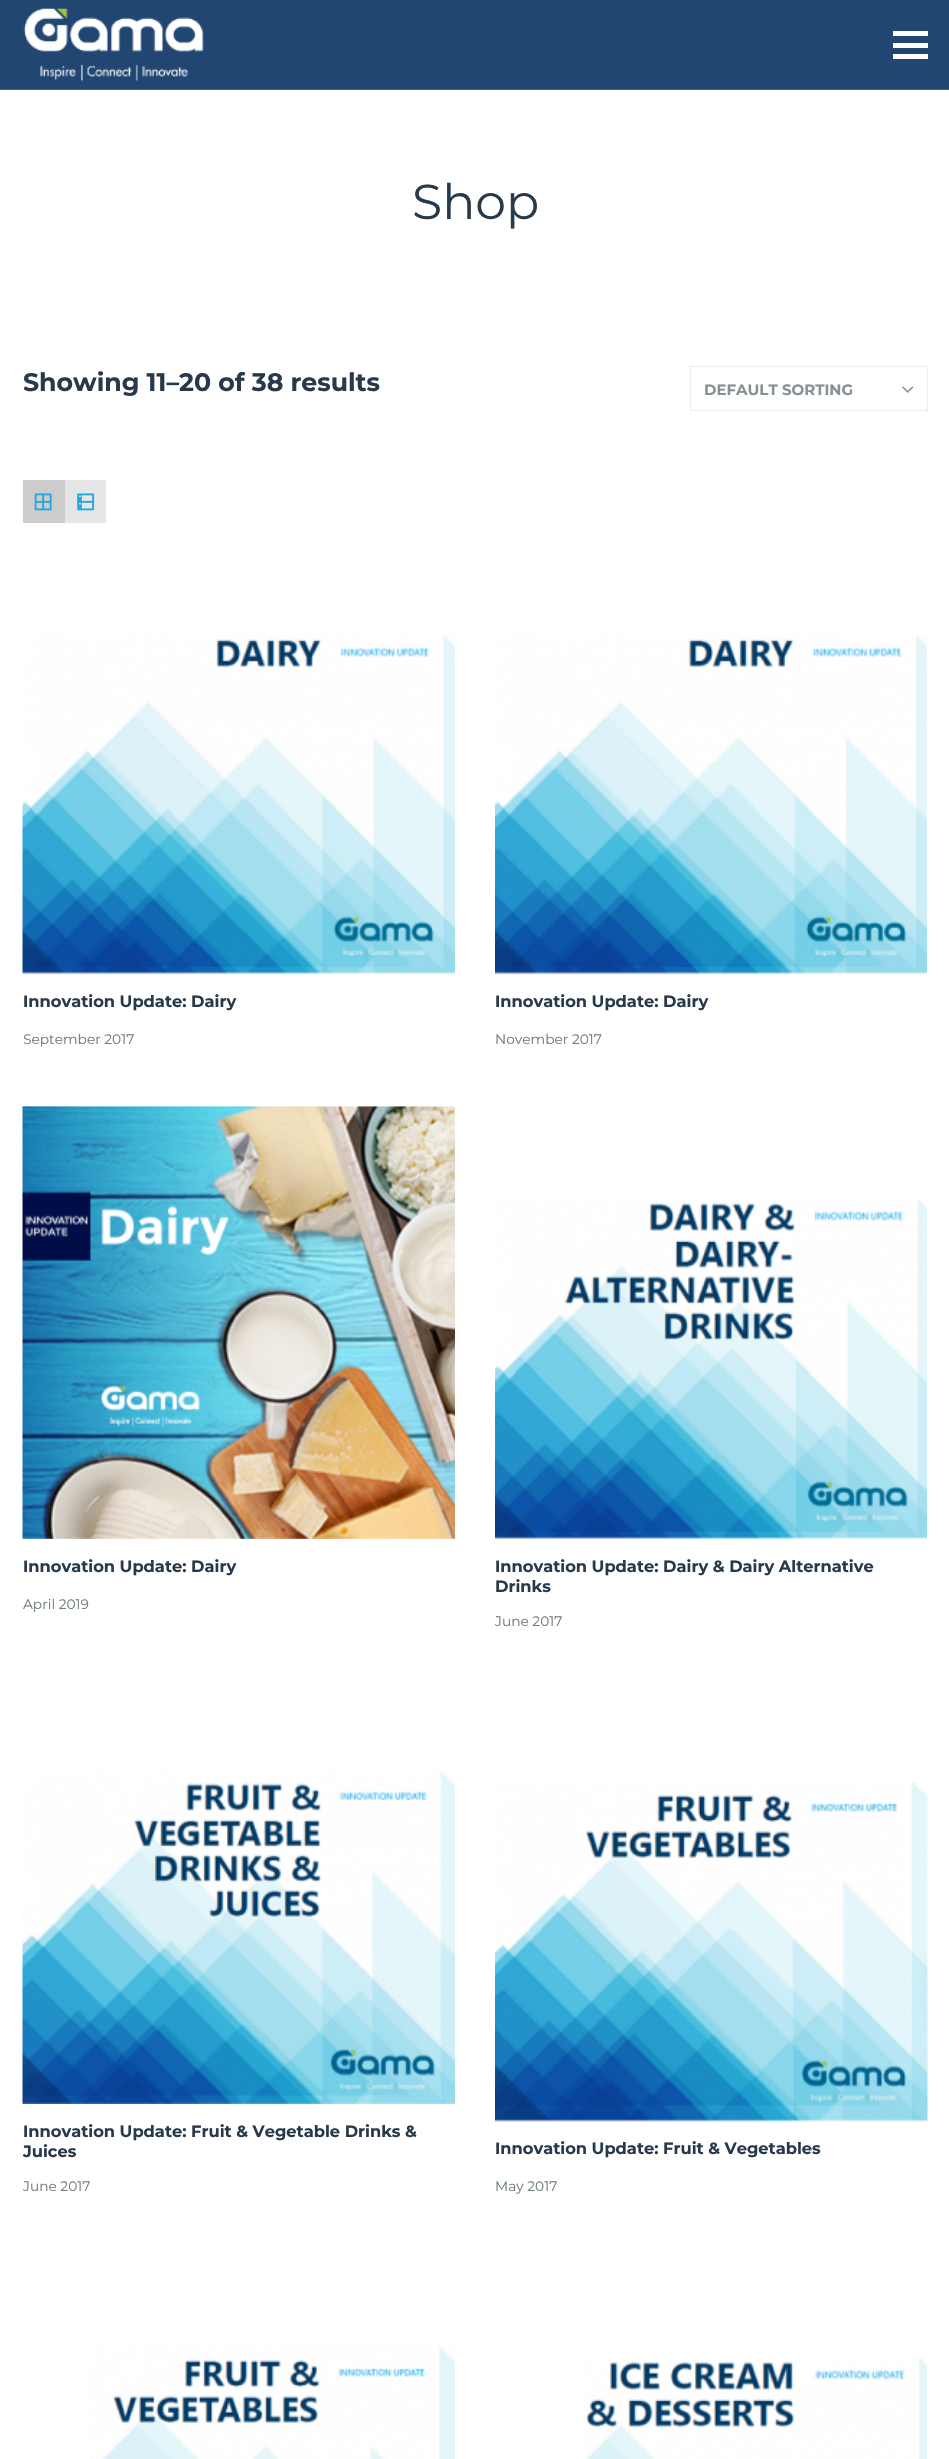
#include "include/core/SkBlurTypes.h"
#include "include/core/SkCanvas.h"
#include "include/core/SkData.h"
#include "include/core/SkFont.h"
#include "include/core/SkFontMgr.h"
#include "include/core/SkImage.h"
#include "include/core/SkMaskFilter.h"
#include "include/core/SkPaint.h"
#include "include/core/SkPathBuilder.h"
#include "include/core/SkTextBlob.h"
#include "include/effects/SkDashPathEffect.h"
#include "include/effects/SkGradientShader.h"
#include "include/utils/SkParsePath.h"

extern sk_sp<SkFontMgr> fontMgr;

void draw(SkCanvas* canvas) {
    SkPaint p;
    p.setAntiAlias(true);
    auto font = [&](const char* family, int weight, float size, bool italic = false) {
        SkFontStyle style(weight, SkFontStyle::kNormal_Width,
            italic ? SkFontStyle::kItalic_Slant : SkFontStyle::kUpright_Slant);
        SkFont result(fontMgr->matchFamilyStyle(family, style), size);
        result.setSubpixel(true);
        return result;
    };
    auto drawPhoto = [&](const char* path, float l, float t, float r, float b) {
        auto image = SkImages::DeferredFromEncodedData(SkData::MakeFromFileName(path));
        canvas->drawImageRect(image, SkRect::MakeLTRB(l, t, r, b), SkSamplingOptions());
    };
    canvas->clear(0xFFFFFFFF);
    p.setColor(0xFF214671);
    canvas->drawRect(SkRect::MakeLTRB(0, 0, 949, 89), p);
    p.setColor(0xFF1E7299);
    canvas->drawRect(SkRect::MakeLTRB(0, 89, 949, 90), p);
    drawPhoto("media/1.png", 23, 8, 204, 82);
    {
        const struct { float l, t, r, b; SkColor color; } items[] = {
            {893, 31, 928, 36, 0xFFFFFFFF},
            {893, 43, 928, 48, 0xFFFFFFFF},
            {893, 54, 928, 59, 0xFFFFFFFF},
        };
        for (auto [l, t, r, b, color] : items) {
            p.setColor(color);
            canvas->drawRect(SkRect::MakeLTRB(l, t, r, b), p);
        }
    }
    auto font1 = font("Montserrat", 400, 49);
    p.setColor(0xFF27394A);
    canvas->drawString("Shop", 412, 219, font1, p);
    auto font2 = font("Montserrat", 700, 25.25f);
    canvas->drawString("Showing 11–20 of 38 results", 23, 391, font2, p);
    p.setStyle(SkPaint::kStroke_Style);
    p.setStrokeWidth(1);
    p.setColor(0xFFE7EEF0);
    canvas->drawRect(SkRect::MakeLTRB(690.5f, 366.5f, 927.5f, 410.5f), p);
    auto font3 = font("Montserrat", 700, 15);
    p.setStyle(SkPaint::kFill_Style);
    p.setColor(0xFF869194);
    canvas->drawString("DEFAULT SORTING", 704, 395, font3, p);
    drawPhoto("media/2.png", 902, 386, 914, 393);
    p.setColor(0xFFCCCCCC);
    canvas->drawRect(SkRect::MakeLTRB(23, 480, 65, 523), p);
    drawPhoto("media/3.png", 34, 493, 52, 511);
    p.setColor(0xFFE6E6E6);
    canvas->drawRect(SkRect::MakeLTRB(65, 480, 106, 523), p);
    drawPhoto("media/4.png", 77, 493, 95, 511);
    drawPhoto("media/5.png", 22, 635, 455, 974);
    auto font4 = font("Montserrat", 700, 16.25f);
    p.setColor(0xFF27394A);
    canvas->drawString("Innovation Update: Dairy", 23, 1007, font4, p);
    auto font5 = font("Montserrat", 400, 13.75f);
    p.setColor(0xFF707C7C);
    canvas->drawString("September 2017", 23, 1044, font5, p);
    drawPhoto("media/6.png", 495, 635, 927, 974);
    p.setColor(0xFF27394A);
    canvas->drawString("Innovation Update: Dairy", 495, 1007, font4, p);
    p.setColor(0xFF707C7C);
    canvas->drawString("November 2017", 495, 1044, font5, p);
    drawPhoto("media/7.png", 22, 1106, 455, 1539);
    p.setColor(0xFF27394A);
    canvas->drawString("Innovation Update: Dairy", 23, 1572, font4, p);
    p.setColor(0xFF707C7C);
    canvas->drawString("April 2019", 23, 1609, font5, p);
    drawPhoto("media/8.png", 495, 1199, 927, 1539);
    p.setColor(0xFF27394A);
    canvas->drawString("Innovation Update: Dairy & Dairy Alternative", 495, 1572, font4, p);
    canvas->drawString("Drinks", 495, 1592, font4, p);
    p.setColor(0xFF707C7C);
    canvas->drawString("June 2017", 495, 1626, font5, p);
    drawPhoto("media/9.png", 22, 1771, 455, 2104);
    p.setColor(0xFF27394A);
    canvas->drawString("Innovation Update: Fruit & Vegetable Drinks &", 23, 2137, font4, p);
    canvas->drawString("Juices", 23, 2157, font4, p);
    p.setColor(0xFF707C7C);
    canvas->drawString("June 2017", 23, 2191, font5, p);
    drawPhoto("media/10.png", 495, 1781, 928, 2122);
    p.setColor(0xFF27394A);
    canvas->drawString("Innovation Update: Fruit & Vegetables", 495, 2154, font4, p);
    p.setColor(0xFF707C7C);
    canvas->drawString("May 2017", 495, 2191, font5, p);
    drawPhoto("media/11.png", 90, 2346, 455, 2459);
    drawPhoto("media/12.png", 585, 2357, 927, 2459);
}
